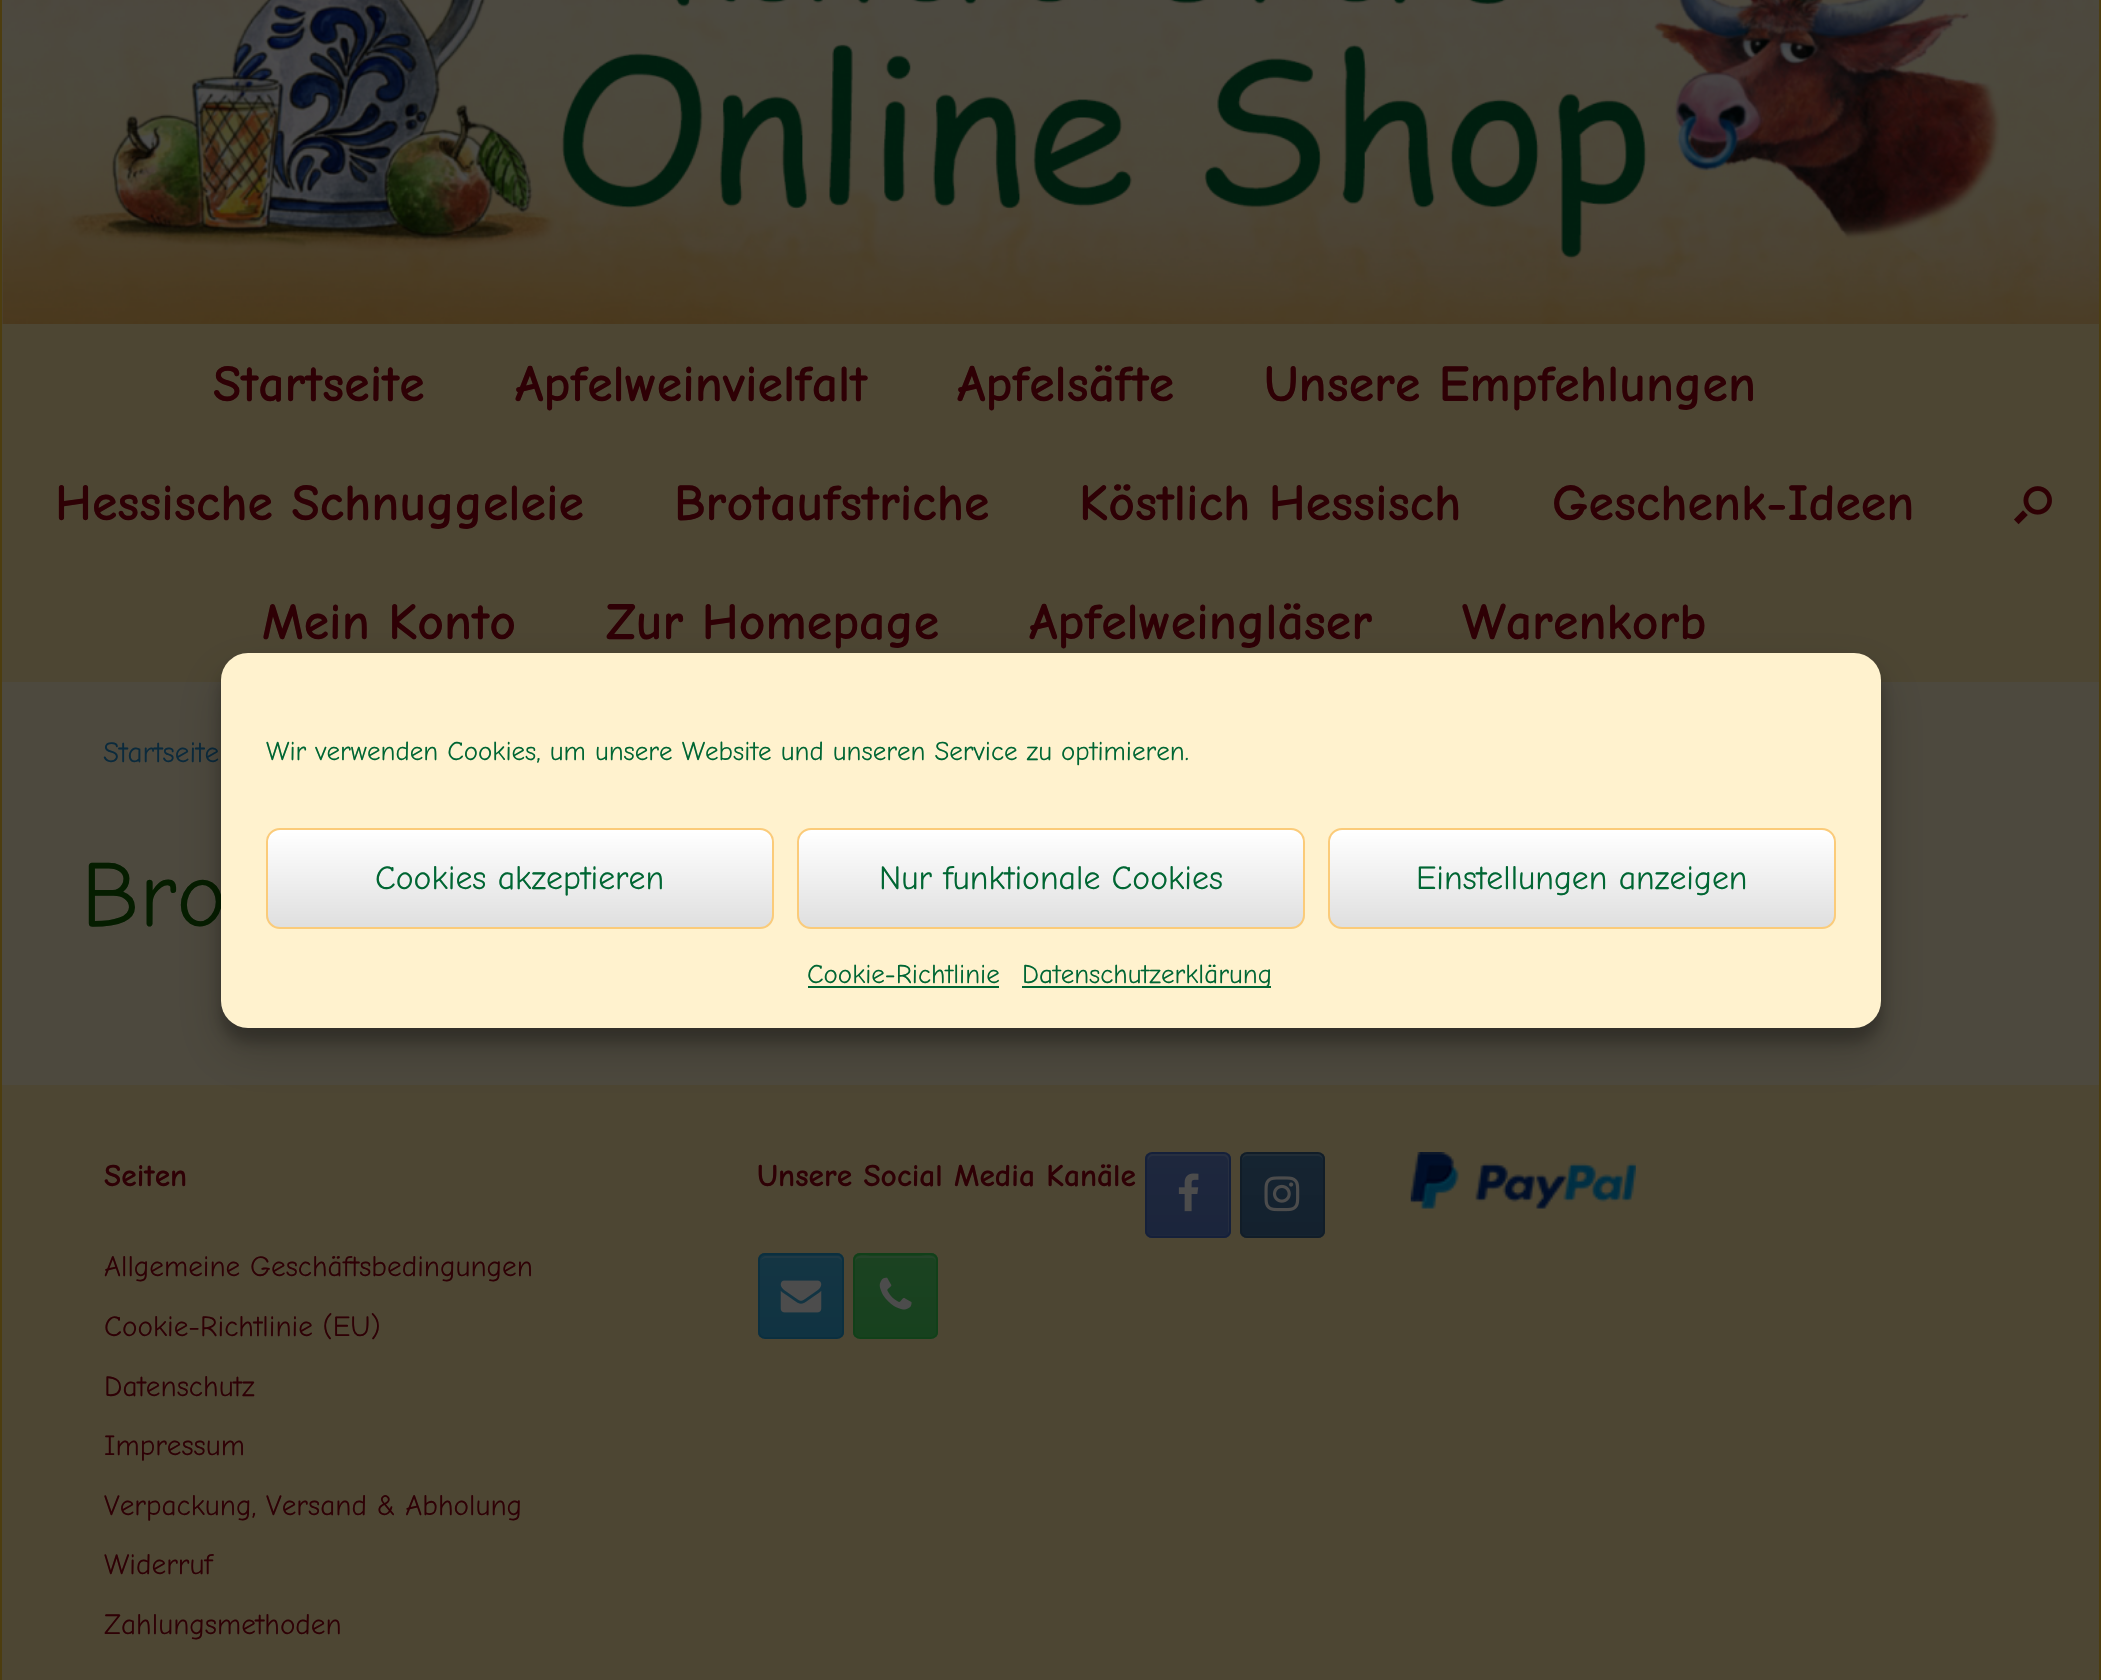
#include "include/core/SkBlurTypes.h"
#include "include/core/SkCanvas.h"
#include "include/core/SkData.h"
#include "include/core/SkFont.h"
#include "include/core/SkFontMgr.h"
#include "include/core/SkImage.h"
#include "include/core/SkMaskFilter.h"
#include "include/core/SkPaint.h"
#include "include/core/SkPathBuilder.h"
#include "include/core/SkTextBlob.h"
#include "include/effects/SkDashPathEffect.h"
#include "include/effects/SkGradientShader.h"
#include "include/utils/SkParsePath.h"

extern sk_sp<SkFontMgr> fontMgr;

void draw(SkCanvas* canvas) {
    SkPaint p;
    p.setAntiAlias(true);
    auto font = [&](const char* family, int weight, float size, bool italic = false) {
        SkFontStyle style(weight, SkFontStyle::kNormal_Width,
            italic ? SkFontStyle::kItalic_Slant : SkFontStyle::kUpright_Slant);
        SkFont result(fontMgr->matchFamilyStyle(family, style), size);
        result.setSubpixel(true);
        return result;
    };
    auto drawPhoto = [&](const char* path, float l, float t, float r, float b) {
        auto image = SkImages::DeferredFromEncodedData(SkData::MakeFromFileName(path));
        canvas->drawImageRect(image, SkRect::MakeLTRB(l, t, r, b), SkSamplingOptions());
    };
    canvas->clear(0xFF4D3D0F);
    p.setColor(0xFF4D493E);
    canvas->drawRect(SkRect::MakeLTRB(2, 0, 3, 324), p);
    drawPhoto("media/1.png", 2, 0, 2100, 324);
    p.setColor(0xFF4D4633);
    canvas->drawRect(SkRect::MakeLTRB(2, 324, 2099, 682), p);
    auto font1 = font("Comic Neue", 700, 51.75f);
    p.setColor(0xFF2E0005);
    {
        const struct { const char* s; float x, y; } items[] = {
            {"Startseite", 213, 401},
            {"Apfelweinvielfalt", 515, 401},
            {"Apfelsäfte", 957, 401},
            {"Unsere Empfehlungen", 1264, 401},
            {"Hessische Schnuggeleie", 55, 520},
            {"Brotaufstriche", 674, 520},
            {"Köstlich Hessisch", 1079, 520},
            {"Geschenk-Ideen", 1552, 520},
            {"Mein Konto", 262, 639},
            {"Zur Homepage", 606, 639},
            {"Apfelweingläser", 1029, 639},
            {"Warenkorb", 1462, 639},
        };
        for (auto [s, x, y] : items) {
            canvas->drawString(s, x, y, font1, p);
        }
    }
    drawPhoto("media/2.png", 2014, 486, 2052, 525);
    p.setColor(0xFF4D493E);
    canvas->drawRect(SkRect::MakeLTRB(2, 682, 2099, 1085), p);
    auto font2 = font("Comic Neue", 400, 29.25f);
    p.setColor(0xFF0B2A3C);
    canvas->drawString("Startseite", 103, 762, font2, p);
    auto font3 = font("Comic Neue", 400, 94);
    p.setColor(0xFF051D00);
    canvas->drawString("Bro", 81, 926, font3, p);
    p.setColor(0xFF4D4633);
    canvas->drawRect(SkRect::MakeLTRB(2, 1085, 2099, 1680), p);
    auto font4 = font("Comic Neue", 700, 31.5f);
    p.setColor(0xFF2E0005);
    canvas->drawString("Seiten", 104, 1186, font4, p);
    {
        const struct { const char* s; float x, y; } items[] = {
            {"Allgemeine Geschäftsbedingungen", 104, 1276},
            {"Cookie-Richtlinie (EU)", 104, 1336},
            {"Datenschutz", 104, 1396},
            {"Impressum", 104, 1455},
            {"Verpackung, Versand & Abholung", 104, 1515},
            {"Widerruf", 104, 1574},
            {"Zahlungsmethoden", 104, 1634},
        };
        for (auto [s, x, y] : items) {
            canvas->drawString(s, x, y, font2, p);
        }
    }
    canvas->drawString("Unsere Social Media Kanäle", 757, 1186, font4, p);
    canvas->save();
    canvas->clipPath(SkPathBuilder().moveTo(1152, 1152).lineTo(1224, 1152).cubicTo(1228, 1152, 1231, 1155, 1231, 1159).lineTo(1231, 1231).cubicTo(1231, 1235, 1228, 1238, 1224, 1238).lineTo(1152, 1238).cubicTo(1148, 1238, 1145, 1235, 1145, 1231).lineTo(1145, 1159).cubicTo(1145, 1155, 1148, 1152, 1152, 1152).close().detach(), true);
    {
        const SkColor colors[] = {0xFF1B253C, 0xFF1E273D};
        const float stops[] = {0, 1};
        const SkPoint ends[] = {{1188, 1235}, {1188, 1154}};
        p.setShader(SkGradientShader::MakeLinear(ends, colors, stops, 2, SkTileMode::kClamp));
        p.setAlpha(255);
    }
    canvas->drawRect(SkRect::MakeLTRB(1145, 1154, 1231, 1235), p);
    {
        const SkColor colors[] = {0xFF1B253C, 0xFF1E273D};
        const float stops[] = {0, 1};
        const SkPoint ends[] = {{1188, 1316}, {1188, 1235}};
        p.setShader(SkGradientShader::MakeLinear(ends, colors, stops, 2, SkTileMode::kClamp));
        p.setAlpha(255);
    }
    canvas->drawRect(SkRect::MakeLTRB(1145, 1235, 1231, 1238), p);
    canvas->restore();
    p.setShader(nullptr);
    p.setColor(0x334D4D4D);
    canvas->drawPath(SkPathBuilder().moveTo(1152, 1156).lineTo(1224, 1156).cubicTo(1226, 1156, 1228, 1159, 1228, 1161).lineTo(1228, 1233).cubicTo(1229, 1232, 1229, 1231, 1229, 1230).lineTo(1229, 1159).cubicTo(1229, 1156, 1227, 1154, 1224, 1154).lineTo(1153, 1154).cubicTo(1150, 1154, 1148, 1156, 1148, 1159).lineTo(1148, 1161).cubicTo(1148, 1159, 1150, 1156, 1152, 1156).close().detach(), p);
    p.setStyle(SkPaint::kStroke_Style);
    p.setStrokeWidth(2);
    p.setColor(0xFF15203A);
    canvas->drawRoundRect(SkRect::MakeLTRB(1146, 1153, 1230, 1237), 6, 6, p);
    drawPhoto("media/3.png", 1178, 1173, 1199, 1212);
    canvas->save();
    canvas->clipPath(SkPathBuilder().moveTo(1247, 1152).lineTo(1318, 1152).cubicTo(1322, 1152, 1325, 1155, 1325, 1159).lineTo(1325, 1231).cubicTo(1325, 1235, 1322, 1238, 1318, 1238).lineTo(1247, 1238).cubicTo(1243, 1238, 1240, 1235, 1240, 1231).lineTo(1240, 1159).cubicTo(1240, 1155, 1243, 1152, 1247, 1152).close().detach(), true);
    p.setStyle(SkPaint::kFill_Style);
    {
        const SkColor colors[] = {0xFF14212E, 0xFF152431};
        const float stops[] = {0, 1};
        const SkPoint ends[] = {{1283, 1235}, {1283, 1154}};
        p.setShader(SkGradientShader::MakeLinear(ends, colors, stops, 2, SkTileMode::kClamp));
        p.setAlpha(255);
    }
    canvas->drawRect(SkRect::MakeLTRB(1240, 1154, 1325, 1235), p);
    {
        const SkColor colors[] = {0xFF14212E, 0xFF152431};
        const float stops[] = {0, 1};
        const SkPoint ends[] = {{1283, 1316}, {1283, 1235}};
        p.setShader(SkGradientShader::MakeLinear(ends, colors, stops, 2, SkTileMode::kClamp));
        p.setAlpha(255);
    }
    canvas->drawRect(SkRect::MakeLTRB(1240, 1235, 1325, 1238), p);
    canvas->restore();
    p.setShader(nullptr);
    p.setColor(0xFF202C36);
    canvas->drawPath(SkPathBuilder().moveTo(1246, 1156).lineTo(1318, 1156).cubicTo(1321, 1156, 1323, 1159, 1323, 1161).cubicTo(1323, 1151, 1314, 1154, 1306, 1154).lineTo(1259, 1154).cubicTo(1251, 1154, 1242, 1151, 1242, 1161).cubicTo(1242, 1159, 1244, 1156, 1246, 1156).close().detach(), p);
    p.setStyle(SkPaint::kStroke_Style);
    p.setColor(0xFF111D28);
    canvas->drawRoundRect(SkRect::MakeLTRB(1241, 1153, 1324, 1237), 6, 6, p);
    drawPhoto("media/4.png", 1264, 1176, 1300, 1212);
    canvas->save();
    canvas->clipPath(SkPathBuilder().moveTo(765, 1253).lineTo(837, 1253).cubicTo(841, 1253, 844, 1256, 844, 1260).lineTo(844, 1332).cubicTo(844, 1336, 841, 1339, 837, 1339).lineTo(765, 1339).cubicTo(761, 1339, 758, 1336, 758, 1332).lineTo(758, 1260).cubicTo(758, 1256, 761, 1253, 765, 1253).close().detach(), true);
    p.setStyle(SkPaint::kFill_Style);
    {
        const SkColor colors[] = {0xFF103342, 0xFF143543};
        const float stops[] = {0, 1};
        const SkPoint ends[] = {{801, 1256}, {801, 1175}};
        p.setShader(SkGradientShader::MakeLinear(ends, colors, stops, 2, SkTileMode::kClamp));
        p.setAlpha(255);
    }
    canvas->drawRect(SkRect::MakeLTRB(758, 1253, 844, 1256), p);
    {
        const SkColor colors[] = {0xFF103342, 0xFF143543};
        const float stops[] = {0, 1};
        const SkPoint ends[] = {{801, 1337}, {801, 1256}};
        p.setShader(SkGradientShader::MakeLinear(ends, colors, stops, 2, SkTileMode::kClamp));
        p.setAlpha(255);
    }
    canvas->drawRect(SkRect::MakeLTRB(758, 1256, 844, 1337), p);
    canvas->restore();
    p.setShader(nullptr);
    p.setColor(0xFF1F3945);
    canvas->drawPath(SkPathBuilder().moveTo(765, 1258).lineTo(837, 1258).cubicTo(839, 1258, 842, 1260, 842, 1262).lineTo(842, 1261).cubicTo(842, 1258, 840, 1256, 837, 1256).lineTo(766, 1256).cubicTo(764, 1256, 762, 1258, 761, 1260).cubicTo(762, 1259, 764, 1258, 765, 1258).close().detach(), p);
    p.setStyle(SkPaint::kStroke_Style);
    p.setColor(0xFF0B2F3F);
    canvas->drawRoundRect(SkRect::MakeLTRB(759, 1254, 843, 1338), 6, 6, p);
    drawPhoto("media/5.png", 780, 1280, 822, 1313);
    canvas->save();
    canvas->clipPath(SkPathBuilder().moveTo(860, 1253).lineTo(931, 1253).cubicTo(935, 1253, 938, 1256, 938, 1260).lineTo(938, 1332).cubicTo(938, 1336, 935, 1339, 931, 1339).lineTo(860, 1339).cubicTo(856, 1339, 853, 1336, 853, 1332).lineTo(853, 1260).cubicTo(853, 1256, 856, 1253, 860, 1253).close().detach(), true);
    p.setStyle(SkPaint::kFill_Style);
    {
        const SkColor colors[] = {0xFF17411E, 0xFF1B4221};
        const float stops[] = {0, 1};
        const SkPoint ends[] = {{896, 1256}, {896, 1175}};
        p.setShader(SkGradientShader::MakeLinear(ends, colors, stops, 2, SkTileMode::kClamp));
        p.setAlpha(255);
    }
    canvas->drawRect(SkRect::MakeLTRB(853, 1253, 938, 1256), p);
    {
        const SkColor colors[] = {0xFF17411E, 0xFF1B4221};
        const float stops[] = {0, 1};
        const SkPoint ends[] = {{896, 1337}, {896, 1256}};
        p.setShader(SkGradientShader::MakeLinear(ends, colors, stops, 2, SkTileMode::kClamp));
        p.setAlpha(255);
    }
    canvas->drawRect(SkRect::MakeLTRB(853, 1256, 938, 1337), p);
    canvas->restore();
    p.setShader(nullptr);
    p.setColor(0xFF25442A);
    canvas->drawPath(SkPathBuilder().moveTo(860, 1258).lineTo(932, 1258).cubicTo(934, 1258, 936, 1260, 936, 1262).cubicTo(936, 1253, 925, 1256, 919, 1256).lineTo(872, 1256).cubicTo(866, 1256, 855, 1253, 855, 1262).cubicTo(855, 1260, 857, 1258, 860, 1258).close().detach(), p);
    p.setStyle(SkPaint::kStroke_Style);
    p.setColor(0xFF114019);
    canvas->drawRoundRect(SkRect::MakeLTRB(854, 1254, 937, 1338), 6, 6, p);
    drawPhoto("media/6.png", 879, 1277, 912, 1310);
    drawPhoto("media/7.png", 1410, 1152, 1636, 1209);
    p.setStyle(SkPaint::kFill_Style);
    p.setColor(0x3B000000);
    p.setMaskFilter(SkMaskFilter::MakeBlur(kNormal_SkBlurStyle, 7));
    canvas->drawRoundRect(SkRect::MakeLTRB(221, 666, 1881, 1042), 27, 27, p);
    p.setMaskFilter(nullptr);
    p.setColor(0x30000000);
    p.setMaskFilter(SkMaskFilter::MakeBlur(kNormal_SkBlurStyle, 22.5f));
    canvas->drawRoundRect(SkRect::MakeLTRB(221, 675, 1881, 1051), 27, 27, p);
    p.setMaskFilter(nullptr);
    p.setColor(0xFFFFF2CE);
    canvas->drawRoundRect(SkRect::MakeLTRB(221, 653, 1881, 1028), 27, 27, p);
    auto font5 = font("Comic Neue", 400, 27);
    p.setColor(0xFF006633);
    canvas->drawString("Wir verwenden Cookies, um unsere Website und unseren Service zu optimieren.", 266, 760, font5, p);
    canvas->save();
    canvas->clipPath(SkPathBuilder().moveTo(280, 828).lineTo(760, 828).cubicTo(767.5f, 828, 774, 834.5f, 774, 842).lineTo(774, 915).cubicTo(774, 922.5f, 767.5f, 929, 760, 929).lineTo(280, 929).cubicTo(272.5f, 929, 266, 922.5f, 266, 915).lineTo(266, 842).cubicTo(266, 834.5f, 272.5f, 828, 280, 828).close().detach(), true);
    {
        const SkColor colors[] = {0xFFDFDFDF, 0xFFFFFFFF};
        const float stops[] = {0, 1};
        const SkPoint ends[] = {{268, 928}, {268, 831}};
        p.setShader(SkGradientShader::MakeLinear(ends, colors, stops, 2, SkTileMode::kClamp));
        p.setAlpha(255);
    }
    canvas->drawRect(SkRect::MakeLTRB(266, 830, 774, 927), p);
    canvas->restore();
    p.setStyle(SkPaint::kStroke_Style);
    p.setShader(nullptr);
    p.setColor(0xFFFBCB79);
    canvas->drawRoundRect(SkRect::MakeLTRB(267, 829, 773, 928), 13, 13, p);
    auto font6 = font("Comic Neue", 400, 33.75f);
    p.setStyle(SkPaint::kFill_Style);
    p.setColor(0xFF006633);
    canvas->drawString("Cookies akzeptieren", 375, 889, font6, p);
    canvas->save();
    canvas->clipPath(SkPathBuilder().moveTo(811, 828).lineTo(1291, 828).cubicTo(1298.5f, 828, 1305, 834.5f, 1305, 842).lineTo(1305, 915).cubicTo(1305, 922.5f, 1298.5f, 929, 1291, 929).lineTo(811, 929).cubicTo(803.5f, 929, 797, 922.5f, 797, 915).lineTo(797, 842).cubicTo(797, 834.5f, 803.5f, 828, 811, 828).close().detach(), true);
    {
        const SkColor colors[] = {0xFFDFDFDF, 0xFFFFFFFF};
        const float stops[] = {0, 1};
        const SkPoint ends[] = {{799, 928}, {799, 831}};
        p.setShader(SkGradientShader::MakeLinear(ends, colors, stops, 2, SkTileMode::kClamp));
        p.setAlpha(255);
    }
    canvas->drawRect(SkRect::MakeLTRB(797, 830, 1305, 927), p);
    canvas->restore();
    p.setStyle(SkPaint::kStroke_Style);
    p.setShader(nullptr);
    p.setColor(0xFFFBCB79);
    canvas->drawRoundRect(SkRect::MakeLTRB(798, 829, 1304, 928), 13, 13, p);
    p.setStyle(SkPaint::kFill_Style);
    p.setColor(0xFF006633);
    canvas->drawString("Nur funktionale Cookies", 879, 889, font6, p);
    canvas->save();
    canvas->clipPath(SkPathBuilder().moveTo(1342, 828).lineTo(1822, 828).cubicTo(1829.5f, 828, 1836, 834.5f, 1836, 842).lineTo(1836, 915).cubicTo(1836, 922.5f, 1829.5f, 929, 1822, 929).lineTo(1342, 929).cubicTo(1334.5f, 929, 1328, 922.5f, 1328, 915).lineTo(1328, 842).cubicTo(1328, 834.5f, 1334.5f, 828, 1342, 828).close().detach(), true);
    {
        const SkColor colors[] = {0xFFDFDFDF, 0xFFFFFFFF};
        const float stops[] = {0, 1};
        const SkPoint ends[] = {{1330, 928}, {1330, 831}};
        p.setShader(SkGradientShader::MakeLinear(ends, colors, stops, 2, SkTileMode::kClamp));
        p.setAlpha(255);
    }
    canvas->drawRect(SkRect::MakeLTRB(1328, 830, 1836, 927), p);
    canvas->restore();
    p.setStyle(SkPaint::kStroke_Style);
    p.setShader(nullptr);
    p.setColor(0xFFFBCB79);
    canvas->drawRoundRect(SkRect::MakeLTRB(1329, 829, 1835, 928), 13, 13, p);
    p.setStyle(SkPaint::kFill_Style);
    p.setColor(0xFF006633);
    canvas->drawString("Einstellungen anzeigen", 1416, 889, font6, p);
    canvas->drawString("Cookie-Richtlinie", 807, 983, font5, p);
    canvas->drawRect(SkRect::MakeLTRB(808, 986, 999, 988), p);
    canvas->drawRect(SkRect::MakeLTRB(1022, 986, 1271, 988), p);
    canvas->drawString("Datenschutzerklärung", 1022, 983, font5, p);
}
